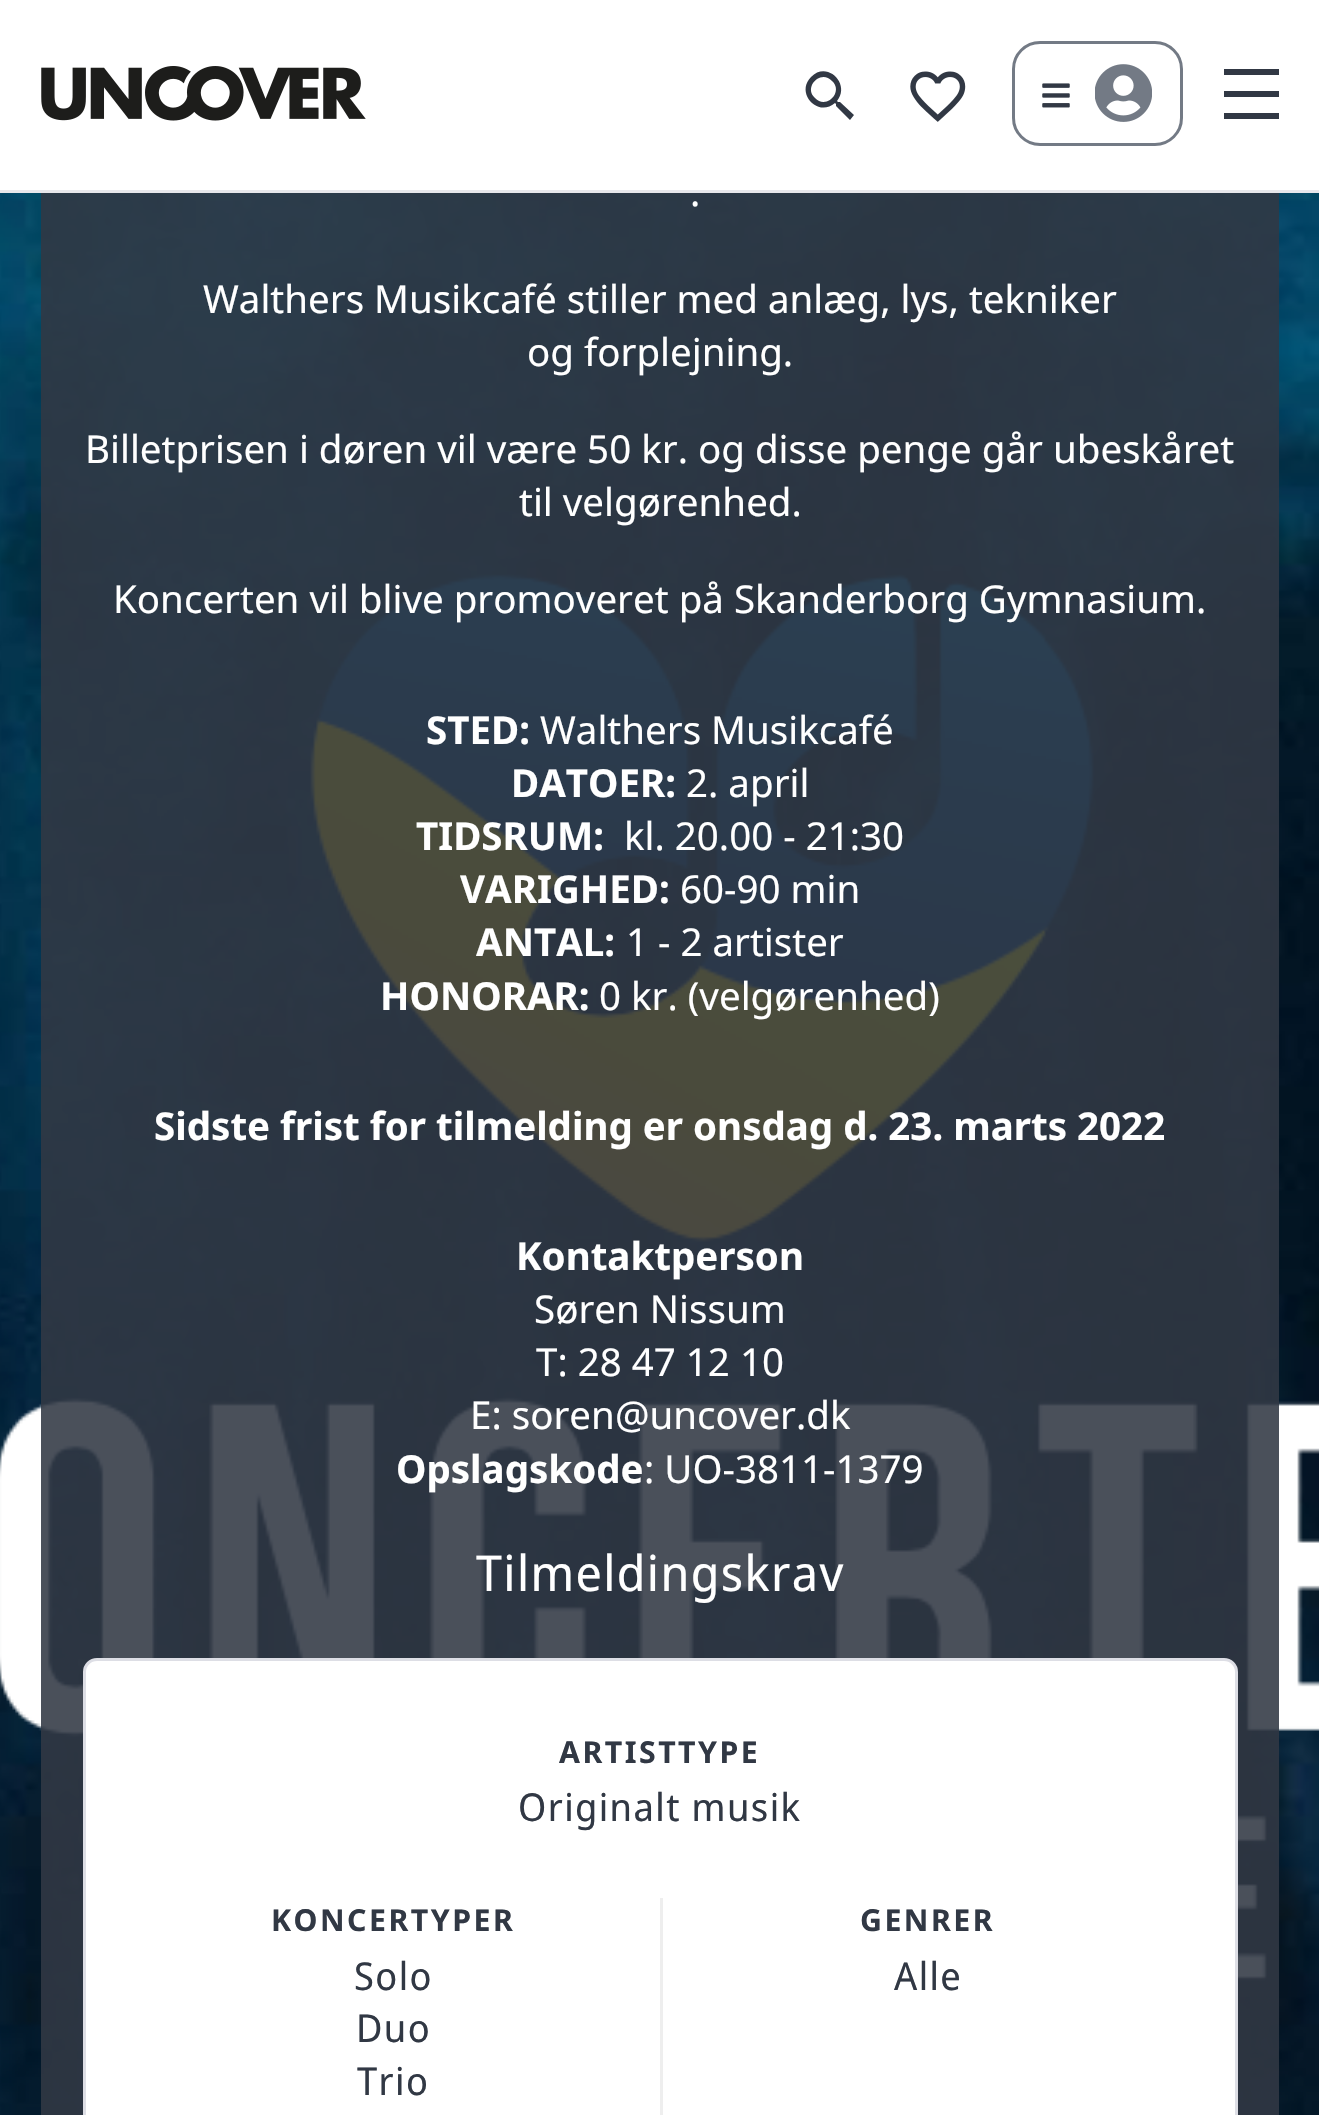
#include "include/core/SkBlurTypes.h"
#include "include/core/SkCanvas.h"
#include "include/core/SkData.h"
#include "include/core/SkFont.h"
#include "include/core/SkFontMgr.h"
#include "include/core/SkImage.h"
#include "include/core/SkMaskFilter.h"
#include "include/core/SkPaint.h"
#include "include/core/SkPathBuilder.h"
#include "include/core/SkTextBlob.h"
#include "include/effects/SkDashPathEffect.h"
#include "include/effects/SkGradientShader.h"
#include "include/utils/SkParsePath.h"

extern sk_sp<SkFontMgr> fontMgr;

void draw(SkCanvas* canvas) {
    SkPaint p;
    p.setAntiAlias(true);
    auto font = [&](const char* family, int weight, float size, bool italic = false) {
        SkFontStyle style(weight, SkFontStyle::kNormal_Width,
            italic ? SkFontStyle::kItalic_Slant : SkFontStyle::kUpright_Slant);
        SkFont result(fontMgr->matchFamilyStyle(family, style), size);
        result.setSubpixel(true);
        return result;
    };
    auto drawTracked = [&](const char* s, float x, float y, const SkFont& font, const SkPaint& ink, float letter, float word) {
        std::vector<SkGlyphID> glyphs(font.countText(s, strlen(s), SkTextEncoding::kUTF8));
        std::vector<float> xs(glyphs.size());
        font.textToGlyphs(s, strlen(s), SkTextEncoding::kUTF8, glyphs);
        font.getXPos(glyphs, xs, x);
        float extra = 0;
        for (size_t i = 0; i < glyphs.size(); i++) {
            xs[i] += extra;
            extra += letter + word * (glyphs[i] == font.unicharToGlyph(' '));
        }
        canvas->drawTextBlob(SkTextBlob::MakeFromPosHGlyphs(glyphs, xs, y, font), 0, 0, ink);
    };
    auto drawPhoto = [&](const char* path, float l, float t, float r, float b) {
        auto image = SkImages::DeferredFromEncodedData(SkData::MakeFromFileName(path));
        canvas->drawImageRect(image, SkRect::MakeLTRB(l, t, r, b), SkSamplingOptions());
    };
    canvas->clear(0xFFFFFFFF);
    p.setColor(0xFFE7E7EB);
    canvas->drawRect(SkRect::MakeLTRB(0, 190, 1319, 193), p);
    drawPhoto("media/1.png", 41, 66, 366, 121);
    p.setColor(0xFF313844);
    canvas->drawPath(SkPathBuilder().moveTo(815, 98).cubicTo(826, 110, 844, 92, 832, 81).cubicTo(821, 69, 803, 87, 815, 98).close().moveTo(840, 102).lineTo(854, 115).lineTo(850, 120).lineTo(836, 106).lineTo(836, 104).lineTo(835, 103).cubicTo(818, 118, 795, 93, 811, 77).cubicTo(827, 60, 851, 84, 837, 101).lineTo(838, 102).close().detach(), p);
    drawPhoto("media/2.png", 910, 71, 966, 122);
    p.setStyle(SkPaint::kStroke_Style);
    p.setStrokeWidth(3);
    p.setColor(0xFF737A85);
    canvas->drawRoundRect(SkRect::MakeLTRB(1013.5f, 42.5f, 1181.5f, 144.5f), 26.5f, 26.5f, p);
    drawPhoto("media/3.png", 1042, 83, 1070, 108);
    drawPhoto("media/4.png", 1095, 64, 1152, 122);
    p.setStyle(SkPaint::kFill_Style);
    {
        const struct { float l, t, r, b; SkColor color; } items[] = {
            {1224, 69, 1279, 75, 0xFF313844},
            {1224, 91, 1279, 97, 0xFF313844},
            {1224, 113, 1279, 119, 0xFF313844},
        };
        for (auto [l, t, r, b, color] : items) {
            p.setColor(color);
            canvas->drawRect(SkRect::MakeLTRB(l, t, r, b), p);
        }
    }
    drawPhoto("media/5.png", 0, 193, 1319, 2115);
    auto font1 = font("Noto Sans", 400, 38.5f);
    p.setColor(0xFFFFFFFF);
    {
        const struct { const char* s; float x, y; } items[] = {
            {".", 690, 206},
            {"Walthers Musikcafé stiller med anlæg, lys, tekniker", 203, 313},
            {"og forplejning.", 527, 366},
            {"Billetprisen i døren vil være 50 kr. og disse penge går ubeskåret", 85, 463},
            {"til velgørenhed.", 519, 516},
            {"Koncerten vil blive promoveret på Skanderborg Gymnasium.", 113, 613},
        };
        for (auto [s, x, y] : items) {
            canvas->drawString(s, x, y, font1, p);
        }
    }
    auto font2 = font("Noto Sans", 700, 38.5f);
    canvas->drawString("STED:", 426, 744, font2, p);
    canvas->drawString("Walthers Musikcafé", 540, 744, font1, p);
    canvas->drawString("DATOER:", 511, 797, font2, p);
    canvas->drawString("2. april", 686, 797, font1, p);
    canvas->drawString("TIDSRUM:", 416, 850, font2, p);
    canvas->drawString("kl. 20.00 - 21:30", 624, 850, font1, p);
    canvas->drawString("VARIGHED:", 460, 903, font2, p);
    canvas->drawString("60-90 min", 680, 903, font1, p);
    canvas->drawString("ANTAL:", 476, 956, font2, p);
    canvas->drawString("1 - 2 artister", 626, 956, font1, p);
    canvas->drawString("HONORAR:", 380, 1010, font2, p);
    canvas->drawString("0 kr. (velgørenhed)", 599, 1010, font1, p);
    canvas->drawString("Sidste frist for tilmelding er onsdag d. 23. marts 2022", 154, 1140, font2, p);
    canvas->drawString("Kontaktperson", 516, 1270, font2, p);
    {
        const struct { const char* s; float x, y; } items[] = {
            {"Søren Nissum", 534, 1323},
            {"T: 28 47 12 10", 536, 1376},
            {"E: soren@uncover.dk", 470, 1429},
        };
        for (auto [s, x, y] : items) {
            canvas->drawString(s, x, y, font1, p);
        }
    }
    canvas->drawString("Opslagskode", 396, 1483, font2, p);
    canvas->drawString(": UO-3811-1379", 644, 1483, font1, p);
    auto font3 = font("Noto Sans Display", 400, 49.5f);
    drawTracked("Tilmeldingskrav", 476, 1591, font3, p, 1.4f, 0);
    canvas->drawRoundRect(SkRect::MakeLTRB(84.5f, 1659.5f, 1236.5f, 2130.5f), 12.5f, 12.5f, p);
    p.setStyle(SkPaint::kStroke_Style);
    p.setColor(0xFFDDDEE5);
    canvas->drawRoundRect(SkRect::MakeLTRB(84.5f, 1659.5f, 1236.5f, 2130.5f), 12.5f, 12.5f, p);
    auto font4 = font("Noto Sans", 700, 30.25f);
    p.setStyle(SkPaint::kFill_Style);
    p.setColor(0xFF313844);
    drawTracked("ARTISTTYPE", 559, 1763, font4, p, 2.5f, 0);
    auto font5 = font("Noto Sans Display", 400, 38.5f);
    drawTracked("Originalt musik", 518, 1821, font5, p, 1.4f, 0);
    drawTracked("KONCERTYPER", 271, 1931, font4, p, 2.5f, 0);
    {
        const struct { const char* s; float x, y; } items[] = {
            {"Solo", 354, 1990},
            {"Duo", 356, 2042},
            {"Trio", 357, 2095},
        };
        for (auto [s, x, y] : items) {
            drawTracked(s, x, y, font5, p, 1.4f, 0);
        }
    }
    p.setColor(0xFFEEEEEE);
    canvas->drawRect(SkRect::MakeLTRB(660, 1898, 663, 2115), p);
    p.setColor(0xFF313844);
    drawTracked("GENRER", 860, 1931, font4, p, 2.5f, 0);
    drawTracked("Alle", 894, 1990, font5, p, 1.4f, 0);
}
